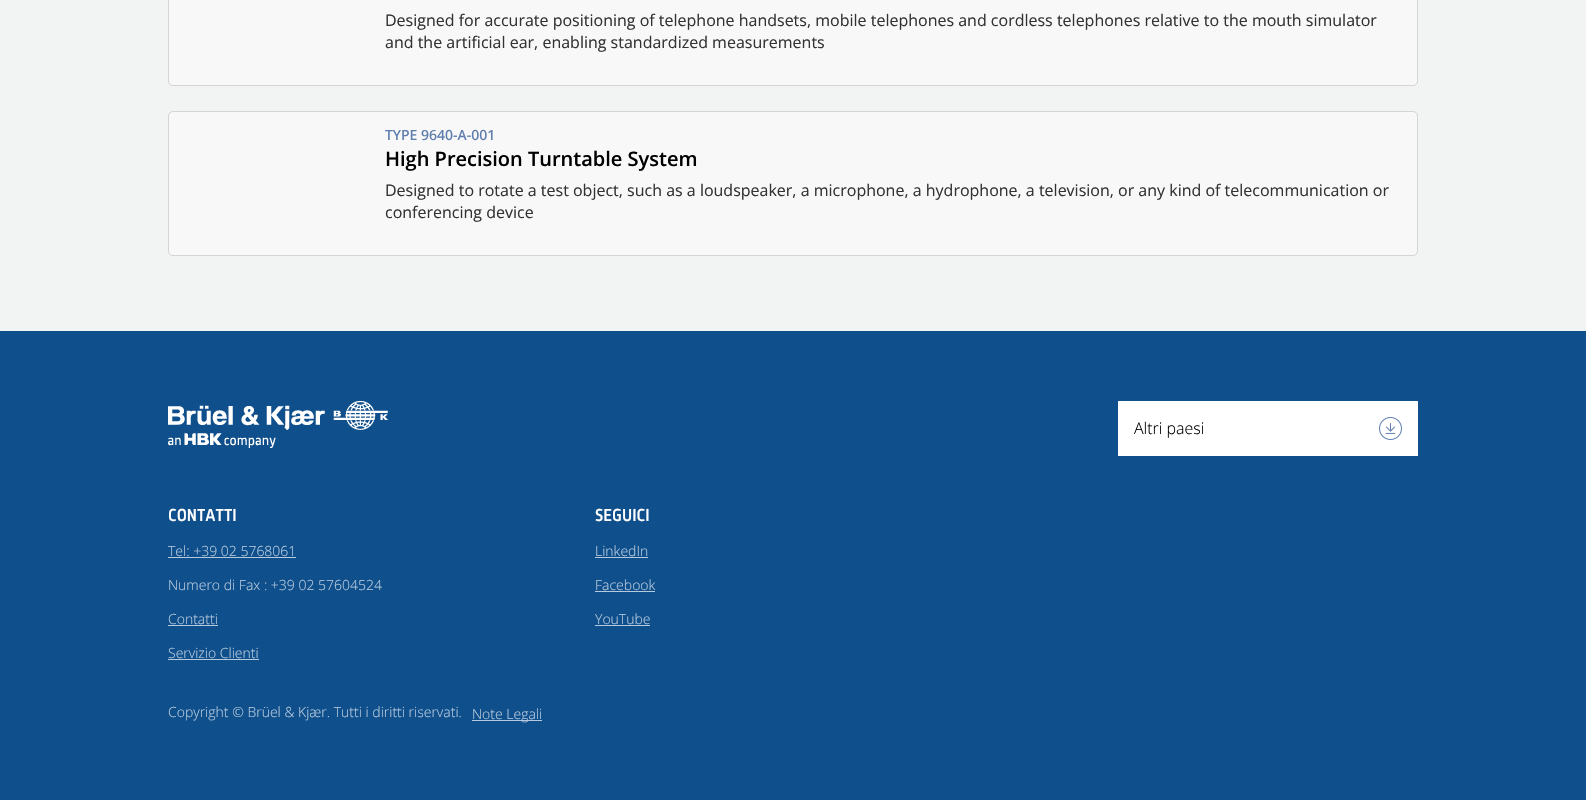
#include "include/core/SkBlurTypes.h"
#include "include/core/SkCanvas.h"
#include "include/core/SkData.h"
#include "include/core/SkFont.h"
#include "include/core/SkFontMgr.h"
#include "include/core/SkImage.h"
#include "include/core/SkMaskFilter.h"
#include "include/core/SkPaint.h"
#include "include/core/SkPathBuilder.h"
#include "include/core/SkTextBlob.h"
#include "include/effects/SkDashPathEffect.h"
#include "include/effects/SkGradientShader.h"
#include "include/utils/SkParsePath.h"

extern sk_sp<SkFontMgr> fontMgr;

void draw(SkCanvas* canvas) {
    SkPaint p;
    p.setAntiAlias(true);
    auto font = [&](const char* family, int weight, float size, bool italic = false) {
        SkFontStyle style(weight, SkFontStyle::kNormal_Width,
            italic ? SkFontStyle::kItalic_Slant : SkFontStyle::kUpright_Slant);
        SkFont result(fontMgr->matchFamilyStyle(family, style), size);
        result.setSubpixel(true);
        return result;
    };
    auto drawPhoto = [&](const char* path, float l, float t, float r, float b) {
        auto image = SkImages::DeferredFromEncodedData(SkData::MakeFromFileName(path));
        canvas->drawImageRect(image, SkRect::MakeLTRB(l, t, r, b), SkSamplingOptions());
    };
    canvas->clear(0xFF0F4F8C);
    p.setColor(0xFFF2F3F3);
    canvas->drawRect(SkRect::MakeLTRB(0, 0, 1586, 331), p);
    p.setColor(0xFFF8F8F8);
    canvas->drawRoundRect(SkRect::MakeLTRB(168, -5, 1418, 86), 5, 5, p);
    p.setStyle(SkPaint::kStroke_Style);
    p.setStrokeWidth(1);
    p.setColor(0x24000000);
    canvas->drawRoundRect(SkRect::MakeLTRB(168.5f, -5.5f, 1417.5f, 85.5f), 4.5f, 4.5f, p);
    auto font1 = font("Open Sans", 400, 16);
    p.setStyle(SkPaint::kFill_Style);
    p.setColor(0xFF333333);
    canvas->drawString("Designed for accurate positioning of telephone handsets, mobile telephones and cordless telephones relative to the mouth simulator", 385, 26, font1, p);
    canvas->drawString("and the artificial ear, enabling standardized measurements", 385, 48, font1, p);
    p.setColor(0xFFF8F8F8);
    canvas->drawRoundRect(SkRect::MakeLTRB(168, 111, 1418, 256), 5, 5, p);
    p.setStyle(SkPaint::kStroke_Style);
    p.setColor(0x24000000);
    canvas->drawRoundRect(SkRect::MakeLTRB(168.5f, 111.5f, 1417.5f, 255.5f), 4.5f, 4.5f, p);
    auto font2 = font("Open Sans", 500, 14);
    p.setStyle(SkPaint::kFill_Style);
    p.setColor(0xFF5E7EAE);
    canvas->drawString("TYPE 9640-A-001", 385, 140, font2, p);
    auto font3 = font("Open Sans", 600, 20);
    p.setColor(0xFF000000);
    canvas->drawString("High Precision Turntable System", 385, 166, font3, p);
    p.setColor(0xFF333333);
    canvas->drawString("Designed to rotate a test object, such as a loudspeaker, a microphone, a hydrophone, a television, or any kind of telecommunication or", 385, 196, font1, p);
    canvas->drawString("conferencing device", 385, 218, font1, p);
    drawPhoto("media/1.png", 168, 401, 388, 448);
    p.setColor(0xFFFFFFFF);
    canvas->drawRect(SkRect::MakeLTRB(1118, 401, 1418, 456), p);
    auto font4 = font("Open Sans", 300, 16);
    p.setColor(0xFF000000);
    canvas->drawString("Altri paesi", 1134, 434, font4, p);
    drawPhoto("media/2.png", 1379, 417, 1402, 440);
    auto font5 = font("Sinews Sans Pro", 500, 18);
    p.setColor(0xFFFFFFFF);
    canvas->drawString("CONTATTI", 168, 521, font5, p);
    auto font6 = font("Open Sans", 300, 14);
    p.setColor(0xFFB7CADD);
    canvas->drawString("Tel: +39 02 5768061", 168, 556, font6, p);
    canvas->drawRect(SkRect::MakeLTRB(168, 557, 296, 558), p);
    canvas->drawString("Numero di Fax : +39 02 57604524", 168, 590, font6, p);
    canvas->drawString("Contatti", 168, 624, font6, p);
    canvas->drawRect(SkRect::MakeLTRB(168, 625, 218, 626), p);
    canvas->drawString("Servizio Clienti", 168, 658, font6, p);
    canvas->drawRect(SkRect::MakeLTRB(168, 659, 259, 660), p);
    p.setColor(0xFFFFFFFF);
    canvas->drawString("SEGUICI", 595, 521, font5, p);
    p.setColor(0xFFB7CADD);
    canvas->drawString("LinkedIn", 595, 556, font6, p);
    canvas->drawRect(SkRect::MakeLTRB(595, 557, 648, 558), p);
    canvas->drawString("Facebook", 595, 590, font6, p);
    canvas->drawRect(SkRect::MakeLTRB(595, 591, 655, 592), p);
    canvas->drawString("YouTube", 595, 624, font6, p);
    canvas->drawRect(SkRect::MakeLTRB(595, 625, 650, 626), p);
    canvas->drawString("Copyright © Brüel & Kjær. Tutti i diritti riservati.", 168, 717, font6, p);
    canvas->drawRect(SkRect::MakeLTRB(472, 720, 542, 721), p);
    canvas->drawString("Note Legali", 472, 719, font6, p);
}
